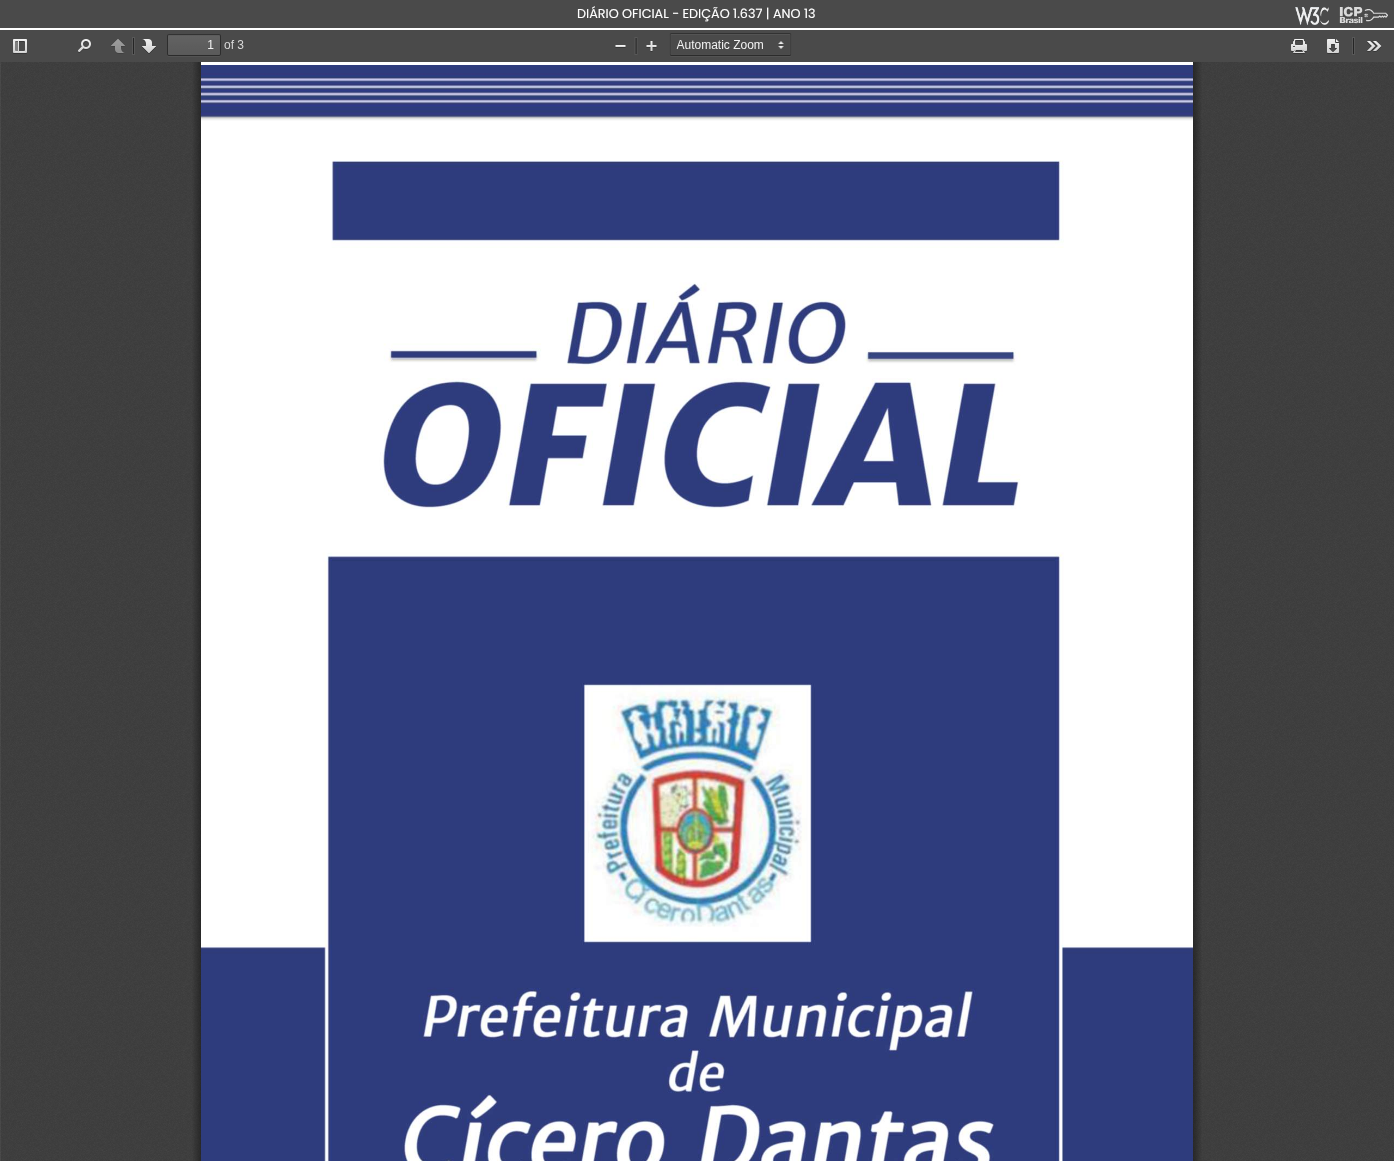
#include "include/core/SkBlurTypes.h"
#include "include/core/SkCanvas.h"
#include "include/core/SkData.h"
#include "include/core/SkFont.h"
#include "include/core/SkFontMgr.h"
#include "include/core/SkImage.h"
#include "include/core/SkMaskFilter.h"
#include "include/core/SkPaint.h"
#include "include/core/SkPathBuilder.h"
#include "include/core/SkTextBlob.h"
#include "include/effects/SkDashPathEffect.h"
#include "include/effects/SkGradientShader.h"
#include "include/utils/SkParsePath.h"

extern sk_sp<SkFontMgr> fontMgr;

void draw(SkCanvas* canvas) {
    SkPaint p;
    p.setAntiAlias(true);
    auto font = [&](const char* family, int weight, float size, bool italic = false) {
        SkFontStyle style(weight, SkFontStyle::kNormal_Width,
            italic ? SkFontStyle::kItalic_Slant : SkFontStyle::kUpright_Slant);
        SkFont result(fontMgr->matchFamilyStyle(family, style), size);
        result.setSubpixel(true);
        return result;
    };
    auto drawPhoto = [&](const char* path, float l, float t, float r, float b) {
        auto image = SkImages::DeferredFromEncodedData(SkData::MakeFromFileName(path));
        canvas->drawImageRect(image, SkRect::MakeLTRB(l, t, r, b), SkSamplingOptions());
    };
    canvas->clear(0xFFFFFFFF);
    p.setColor(0xFF4A4A4A);
    canvas->drawRect(SkRect::MakeLTRB(0, 0, 1394, 28), p);
    auto font1 = font("Poppins", 400, 12.75f);
    p.setColor(0xFFFFFFFF);
    canvas->drawString("DIÁRIO OFICIAL - EDIÇÃO 1.637 | ANO 13", 577, 18, font1, p);
    drawPhoto("media/1.png", 1295, 7, 1329, 25);
    drawPhoto("media/2.png", 1339, 6, 1388, 24);
    drawPhoto("media/3.png", 0, 30, 1394, 1161);
}
